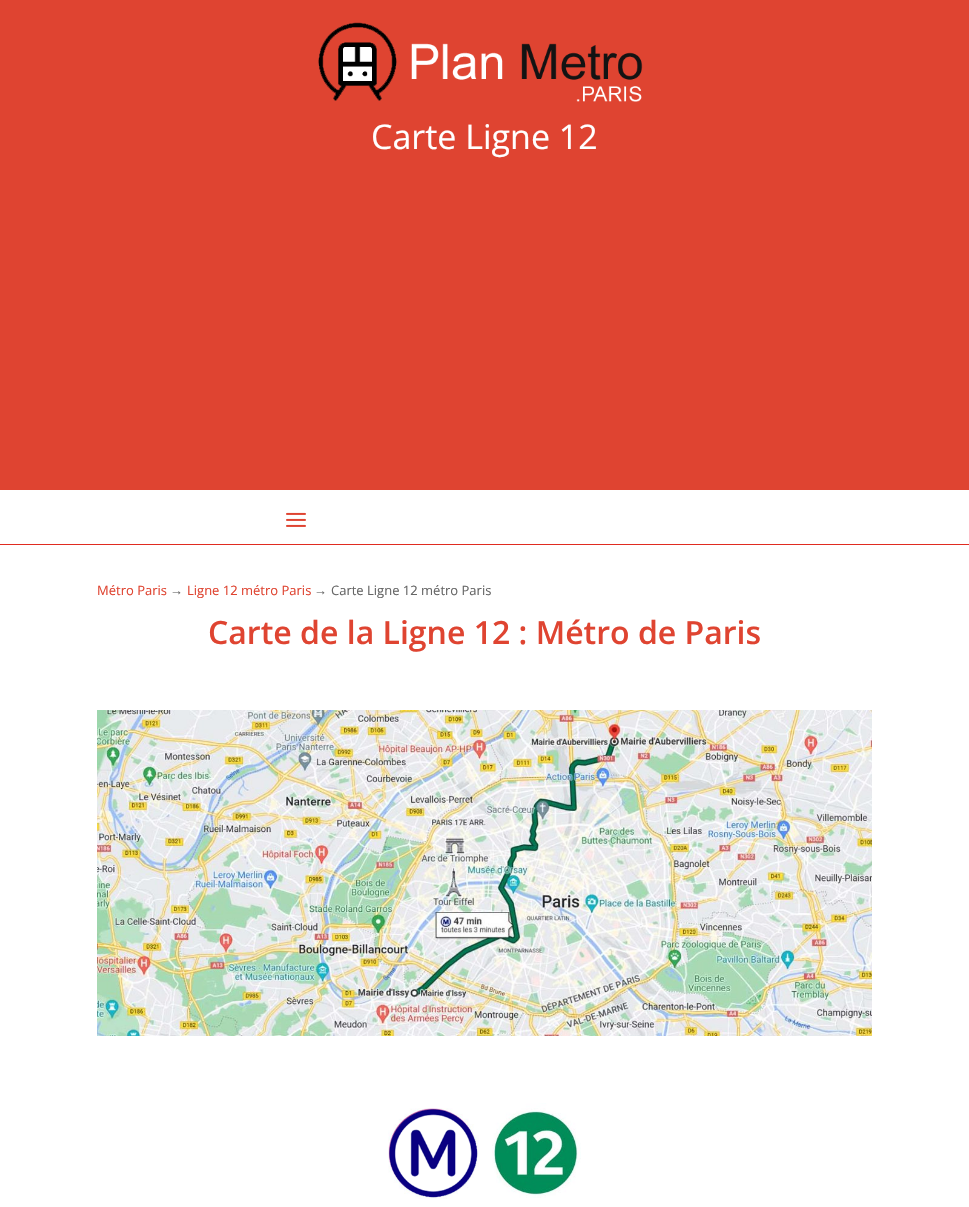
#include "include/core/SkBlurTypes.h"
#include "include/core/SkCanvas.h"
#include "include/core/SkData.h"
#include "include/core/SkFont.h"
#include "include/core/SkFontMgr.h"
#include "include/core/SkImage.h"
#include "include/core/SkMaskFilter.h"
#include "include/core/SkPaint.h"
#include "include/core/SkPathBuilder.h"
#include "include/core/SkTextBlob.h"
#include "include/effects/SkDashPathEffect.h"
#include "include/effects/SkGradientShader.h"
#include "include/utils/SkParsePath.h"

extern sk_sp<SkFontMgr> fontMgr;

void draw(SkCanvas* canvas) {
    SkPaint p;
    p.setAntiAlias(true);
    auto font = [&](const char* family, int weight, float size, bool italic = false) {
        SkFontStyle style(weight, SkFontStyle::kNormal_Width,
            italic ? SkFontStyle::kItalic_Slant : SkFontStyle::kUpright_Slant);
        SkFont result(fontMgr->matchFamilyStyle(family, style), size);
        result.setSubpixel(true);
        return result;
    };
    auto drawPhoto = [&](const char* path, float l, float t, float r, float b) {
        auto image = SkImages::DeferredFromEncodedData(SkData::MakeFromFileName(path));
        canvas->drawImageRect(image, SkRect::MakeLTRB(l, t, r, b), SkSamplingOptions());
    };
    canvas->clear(0xFFFFFFFF);
    p.setColor(0xFFDF4431);
    canvas->drawRect(SkRect::MakeLTRB(0, 0, 969, 490), p);
    drawPhoto("media/1.png", 318, 22, 643, 102);
    auto font1 = font("Open Sans", 400, 34);
    p.setColor(0xFFFFFFFF);
    canvas->drawString("Carte Ligne 12", 371, 149, font1, p);
    p.setColor(0xFFE02B20);
    canvas->drawRect(SkRect::MakeLTRB(0, 544, 969, 545), p);
    drawPhoto("media/2.png", 286, 512, 306, 527);
    auto font2 = font("Open Sans", 400, 13);
    p.setColor(0xFFDF4431);
    canvas->drawString("Métro Paris", 97, 595, font2, p);
    auto font3 = font("Liberation Sans", 400, 13);
    p.setColor(0xFF666666);
    canvas->drawString("→", 170, 595, font3, p);
    p.setColor(0xFFDF4431);
    canvas->drawString("Ligne 12 métro Paris", 187, 595, font2, p);
    p.setColor(0xFF666666);
    canvas->drawString("→", 314, 595, font3, p);
    canvas->drawString("Carte Ligne 12 métro Paris", 331, 595, font2, p);
    auto font4 = font("Open Sans", 600, 32);
    p.setColor(0xFFDF4431);
    canvas->drawString("Carte de la Ligne 12 : Métro de Paris", 208, 644, font4, p);
    drawPhoto("media/3.png", 97, 710, 872, 1036);
    drawPhoto("media/4.png", 388, 1108, 479, 1199);
    drawPhoto("media/5.png", 492, 1103, 581, 1198);
}
